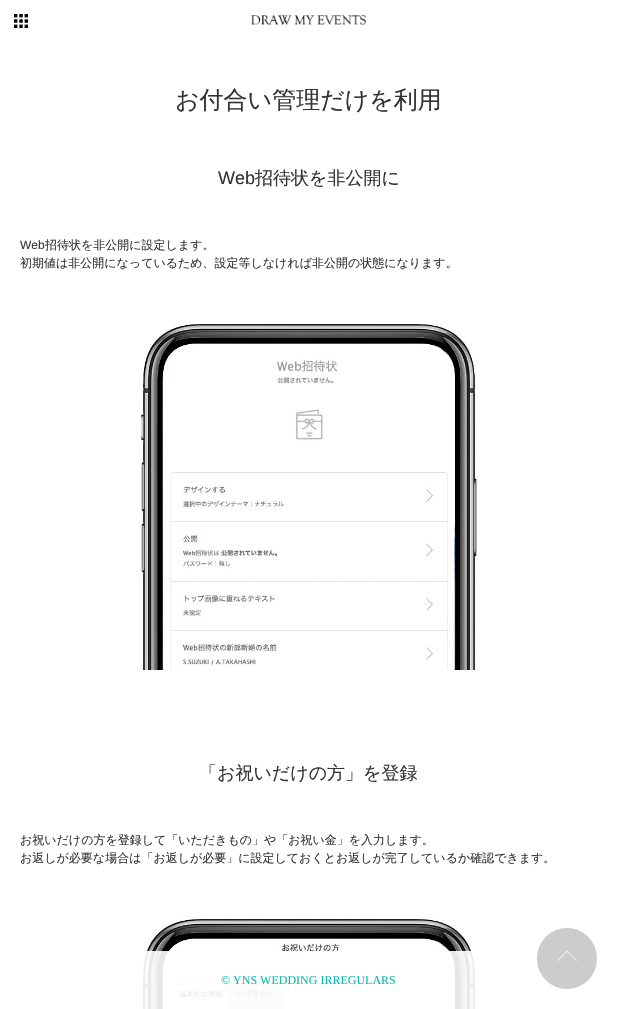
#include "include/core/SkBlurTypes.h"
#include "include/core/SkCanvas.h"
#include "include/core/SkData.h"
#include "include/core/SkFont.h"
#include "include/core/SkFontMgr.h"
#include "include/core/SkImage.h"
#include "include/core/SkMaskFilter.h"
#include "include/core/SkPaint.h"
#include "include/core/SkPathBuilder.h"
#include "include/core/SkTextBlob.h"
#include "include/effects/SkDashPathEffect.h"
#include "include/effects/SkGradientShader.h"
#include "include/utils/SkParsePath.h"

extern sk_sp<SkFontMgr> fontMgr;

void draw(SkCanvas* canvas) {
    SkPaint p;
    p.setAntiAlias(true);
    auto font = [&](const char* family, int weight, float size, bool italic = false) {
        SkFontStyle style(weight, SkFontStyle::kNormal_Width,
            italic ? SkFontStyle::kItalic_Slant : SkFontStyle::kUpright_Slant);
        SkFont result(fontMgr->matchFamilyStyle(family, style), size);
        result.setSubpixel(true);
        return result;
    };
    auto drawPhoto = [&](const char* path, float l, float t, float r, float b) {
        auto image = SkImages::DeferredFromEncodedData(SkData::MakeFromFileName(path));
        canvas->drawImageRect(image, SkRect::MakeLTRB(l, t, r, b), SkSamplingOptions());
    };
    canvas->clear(0xFFFFFFFF);
    drawPhoto("media/1.png", 14, 14, 28, 28);
    drawPhoto("media/2.png", 251, 15, 366, 25);
    auto font1 = font("WenQuanYi Zen Hei", 500, 24);
    p.setColor(0xFF333333);
    canvas->drawString("お付合い管理だけを利用", 175, 108, font1, p);
    auto font2 = font("Liberation Sans", 400, 18);
    canvas->drawString("Web", 218, 184, font2, p);
    auto font3 = font("WenQuanYi Zen Hei", 500, 18);
    canvas->drawString("招待状を非公開に", 255, 184, font3, p);
    auto font4 = font("Liberation Sans", 400, 12);
    canvas->drawString("Web", 20, 249, font4, p);
    auto font5 = font("WenQuanYi Zen Hei", 500, 12);
    canvas->drawString("招待状を非公開に設定します。", 45, 249, font5, p);
    canvas->drawString("初期値は非公開になっているため、設定等しなければ非公開の状態になります。", 20, 267, font5, p);
    drawPhoto("media/3.png", 140, 324, 477, 670);
    canvas->drawString("「お祝いだけの方」を登録", 199, 779, font3, p);
    canvas->drawString("お祝いだけの方を登録して「いただきもの」や「お祝い金」を入力します。", 20, 844, font5, p);
    canvas->drawString("お返しが必要な場合は「お返しが必要」に設定しておくとお返しが完了しているか確認できます。", 20, 862, font5, p);
    drawPhoto("media/4.png", 141, 919, 477, 1009);
    p.setColor(0xE6FFFFFF);
    canvas->drawRect(SkRect::MakeLTRB(141, 951, 477, 1009), p);
    auto font6 = font("Liberation Serif", 400, 12);
    p.setColor(0xFF0ABAB5);
    canvas->drawString("© YNS WEDDING IRREGULARS", 221, 984, font6, p);
    p.setColor(0xFFCCCCCC);
    canvas->drawRoundRect(SkRect::MakeLTRB(537, 928, 597, 989), 30, 30, p);
    drawPhoto("media/5.png", 557, 951, 577, 961);
}
